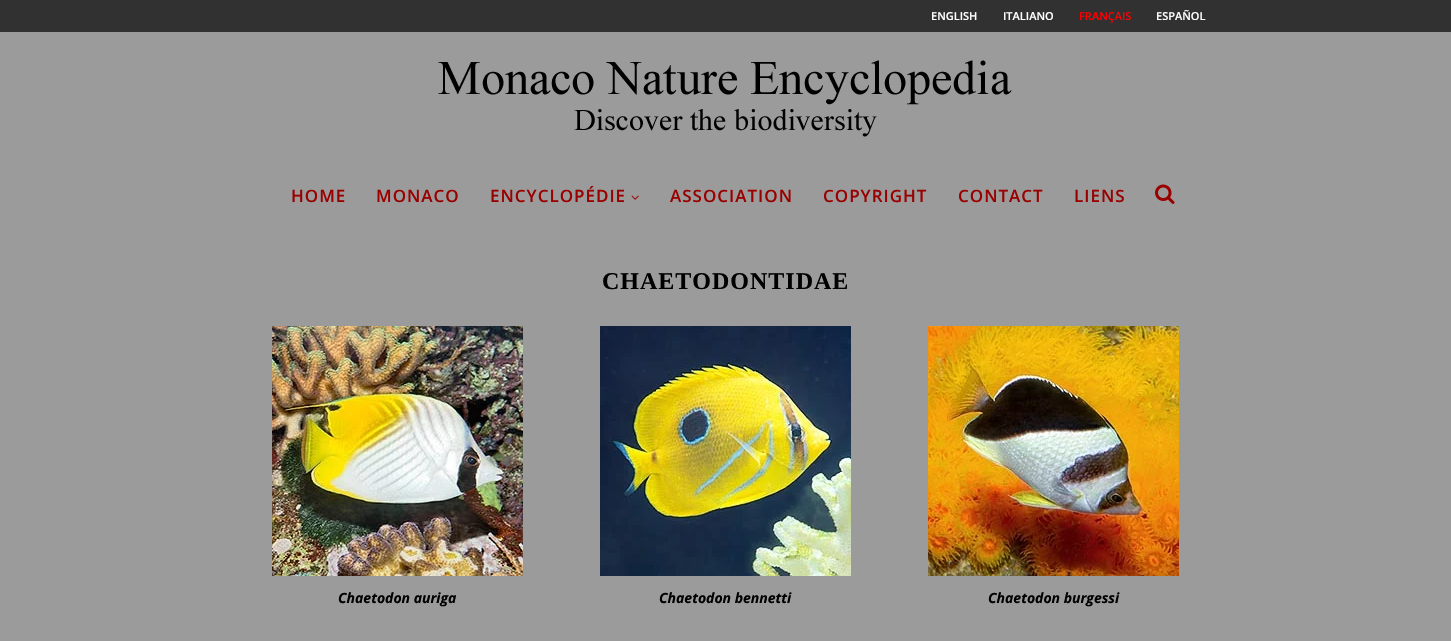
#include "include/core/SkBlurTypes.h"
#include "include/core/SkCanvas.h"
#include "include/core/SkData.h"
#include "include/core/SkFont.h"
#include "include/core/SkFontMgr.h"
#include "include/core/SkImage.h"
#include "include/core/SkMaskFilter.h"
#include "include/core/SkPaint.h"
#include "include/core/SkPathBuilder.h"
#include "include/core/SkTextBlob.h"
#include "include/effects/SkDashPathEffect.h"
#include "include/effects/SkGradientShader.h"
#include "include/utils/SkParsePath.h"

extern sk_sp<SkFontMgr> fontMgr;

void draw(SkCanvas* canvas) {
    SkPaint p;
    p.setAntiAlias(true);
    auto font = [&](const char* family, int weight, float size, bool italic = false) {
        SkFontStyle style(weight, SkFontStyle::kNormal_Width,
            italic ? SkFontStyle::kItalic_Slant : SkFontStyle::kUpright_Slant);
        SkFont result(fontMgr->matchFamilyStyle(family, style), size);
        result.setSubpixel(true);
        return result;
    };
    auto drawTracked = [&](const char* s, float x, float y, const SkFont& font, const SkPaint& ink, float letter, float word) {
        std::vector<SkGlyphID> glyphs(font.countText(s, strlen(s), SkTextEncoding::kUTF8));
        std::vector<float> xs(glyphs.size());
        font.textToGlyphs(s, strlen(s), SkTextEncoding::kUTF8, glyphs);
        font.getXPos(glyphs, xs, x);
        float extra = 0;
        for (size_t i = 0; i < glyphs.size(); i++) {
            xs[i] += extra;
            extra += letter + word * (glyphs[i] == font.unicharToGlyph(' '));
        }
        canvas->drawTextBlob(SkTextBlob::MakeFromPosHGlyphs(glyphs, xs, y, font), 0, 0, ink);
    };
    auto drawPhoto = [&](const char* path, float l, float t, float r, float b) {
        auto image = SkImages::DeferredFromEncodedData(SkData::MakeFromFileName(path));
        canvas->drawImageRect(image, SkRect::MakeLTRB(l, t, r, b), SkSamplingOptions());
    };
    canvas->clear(0xFF9B9B9B);
    p.setColor(0xFF313131);
    canvas->drawRect(SkRect::MakeLTRB(0, 0, 1451, 32), p);
    auto font1 = font("Open Sans", 600, 11);
    p.setColor(0xFFFFFFFF);
    canvas->drawString("ENGLISH", 931, 20, font1, p);
    canvas->drawString("ITALIANO", 1003, 20, font1, p);
    p.setColor(0xFFFF0000);
    canvas->drawString("FRANÇAIS", 1079, 20, font1, p);
    p.setColor(0xFFFFFFFF);
    canvas->drawString("ESPAÑOL", 1156, 20, font1, p);
    drawPhoto("media/1.png", 438, 60, 1012, 137);
    auto font2 = font("Open Sans", 600, 17);
    p.setColor(0xFF990000);
    {
        const struct { const char* s; float x, y; } items[] = {
            {"HOME", 291, 202},
            {"MONACO", 376, 202},
            {"ENCYCLOPÉDIE", 490, 202},
        };
        for (auto [s, x, y] : items) {
            drawTracked(s, x, y, font2, p, 1, 0);
        }
    }
    drawPhoto("media/2.png", 631, 195, 639, 200);
    {
        const struct { const char* s; float x, y; } items[] = {
            {"ASSOCIATION", 670, 202},
            {"COPYRIGHT", 823, 202},
            {"CONTACT", 958, 202},
            {"LIENS", 1074, 202},
        };
        for (auto [s, x, y] : items) {
            drawTracked(s, x, y, font2, p, 1, 0);
        }
    }
    drawPhoto("media/3.png", 1155, 184, 1175, 204);
    auto font3 = font("Liberation Serif", 700, 24);
    p.setColor(0xFF000000);
    drawTracked("CHAETODONTIDAE", 602, 289, font3, p, 1, 0);
    drawPhoto("media/4.png", 272, 326, 523, 576);
    auto font4 = font("Open Sans", 700, 14, true);
    canvas->drawString("Chaetodon auriga", 338, 603, font4, p);
    drawPhoto("media/5.png", 600, 326, 851, 576);
    canvas->drawString("Chaetodon bennetti", 659, 603, font4, p);
    drawPhoto("media/6.png", 928, 326, 1179, 576);
    canvas->drawString("Chaetodon burgessi", 988, 603, font4, p);
}
